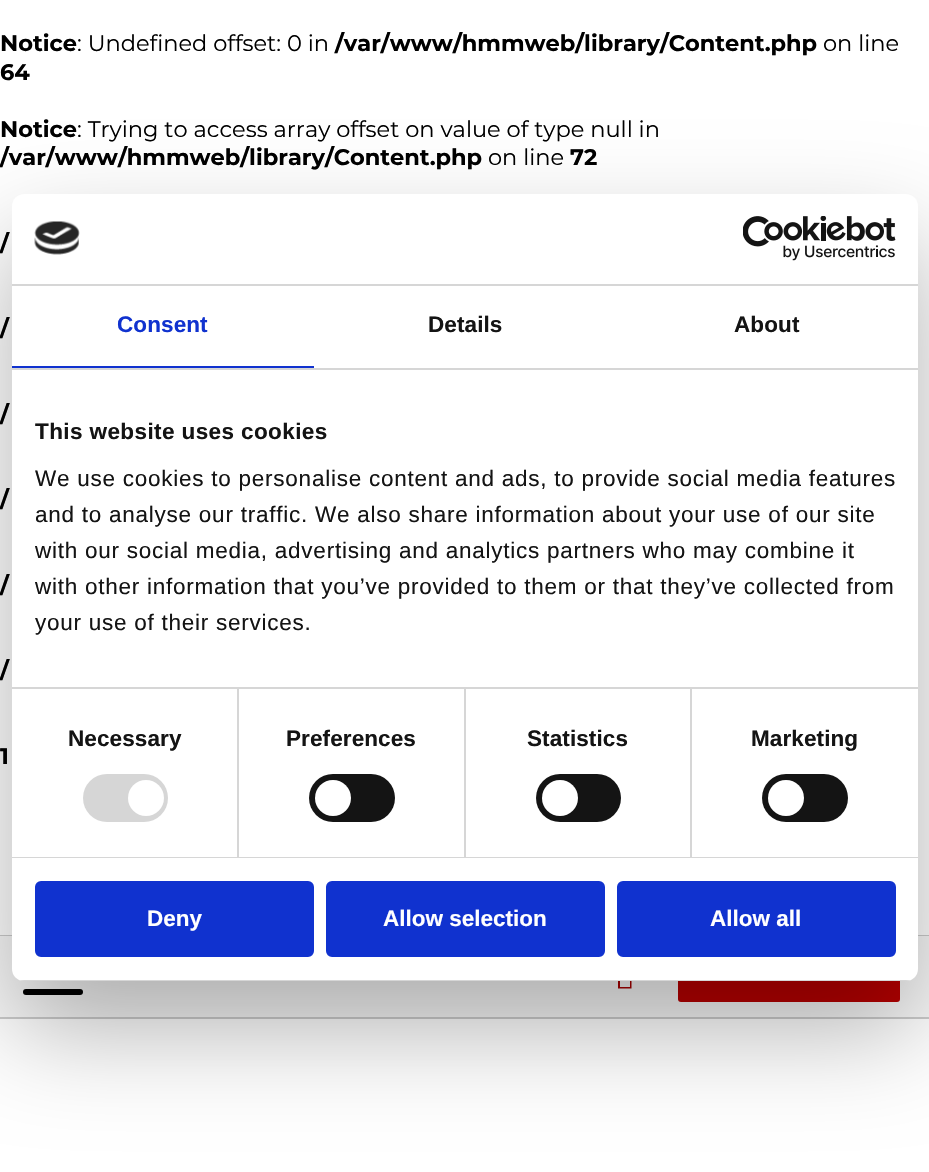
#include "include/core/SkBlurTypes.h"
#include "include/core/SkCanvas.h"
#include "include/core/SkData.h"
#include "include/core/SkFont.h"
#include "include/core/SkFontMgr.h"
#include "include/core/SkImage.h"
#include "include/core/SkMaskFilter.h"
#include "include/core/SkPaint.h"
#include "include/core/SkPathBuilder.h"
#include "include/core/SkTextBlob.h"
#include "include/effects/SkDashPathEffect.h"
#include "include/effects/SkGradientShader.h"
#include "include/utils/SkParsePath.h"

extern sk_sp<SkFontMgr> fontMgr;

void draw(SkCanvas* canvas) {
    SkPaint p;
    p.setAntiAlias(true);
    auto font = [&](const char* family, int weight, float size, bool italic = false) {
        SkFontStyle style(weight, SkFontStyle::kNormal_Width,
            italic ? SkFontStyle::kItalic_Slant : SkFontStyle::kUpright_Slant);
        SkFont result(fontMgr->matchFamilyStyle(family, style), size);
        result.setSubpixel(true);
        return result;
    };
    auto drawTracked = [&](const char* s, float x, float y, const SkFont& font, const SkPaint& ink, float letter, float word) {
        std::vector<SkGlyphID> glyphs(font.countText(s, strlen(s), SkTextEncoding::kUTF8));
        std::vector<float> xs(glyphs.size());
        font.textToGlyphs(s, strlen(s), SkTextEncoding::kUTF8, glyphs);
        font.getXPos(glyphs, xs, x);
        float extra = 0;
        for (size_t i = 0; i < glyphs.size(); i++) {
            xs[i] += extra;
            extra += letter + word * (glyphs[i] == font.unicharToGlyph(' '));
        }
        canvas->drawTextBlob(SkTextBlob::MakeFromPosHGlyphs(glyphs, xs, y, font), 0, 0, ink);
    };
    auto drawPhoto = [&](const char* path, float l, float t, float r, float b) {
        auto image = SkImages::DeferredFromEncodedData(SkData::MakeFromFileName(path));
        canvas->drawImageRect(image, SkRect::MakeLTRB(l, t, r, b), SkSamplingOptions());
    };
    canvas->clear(0xFFFFFFFF);
    auto font1 = font("Montserrat", 700, 22.5f);
    p.setColor(0xFF000000);
    canvas->drawString("Notice", 0, 51, font1, p);
    auto font2 = font("Montserrat", 400, 22.5f);
    canvas->drawString(": Undefined offset: 0 in", 77, 51, font2, p);
    canvas->drawString("/var/www/hmmweb/library/Content.php", 335, 51, font1, p);
    canvas->drawString("on line", 823, 51, font2, p);
    canvas->drawString("64", 0, 80, font1, p);
    canvas->drawString("Notice", 0, 137, font1, p);
    canvas->drawString(": Trying to access array offset on value of type null in", 77, 137, font2, p);
    canvas->drawString("/var/www/hmmweb/library/Content.php", 0, 165, font1, p);
    canvas->drawString("on line", 488, 165, font2, p);
    {
        const struct { const char* s; float x, y; } items[] = {
            {"72", 570, 165},
            {"/", 0, 251},
            {"/", 0, 336},
        };
        for (auto [s, x, y] : items) {
            canvas->drawString(s, x, y, font1, p);
        }
    }
    {
        const struct { float l, t, r, b; SkColor color; } items[] = {
            {0, 935, 929, 936, 0xFFCCCCCC},
            {0, 1017, 929, 1019, 0xFFCCCCCC},
            {0, 936, 929, 1017, 0xFFF8F8F8},
        };
        for (auto [l, t, r, b, color] : items) {
            p.setColor(color);
            canvas->drawRect(SkRect::MakeLTRB(l, t, r, b), p);
        }
    }
    p.setColor(0xFFAA0000);
    canvas->drawPath(SkPathBuilder().moveTo(618, 988.5f).lineTo(618, 965).lineTo(631.5f, 965).lineTo(631.5f, 988.5f).close().moveTo(620, 987).lineTo(630, 987).lineTo(630, 966.5f).lineTo(620, 966.5f).close().detach(), p);
    p.setColor(0xFFB90000);
    canvas->drawRoundRect(SkRect::MakeLTRB(678, 953, 900, 1002), 3, 3, p);
    p.setColor(0xFF000000);
    canvas->drawRoundRect(SkRect::MakeLTRB(23, 989, 83, 995), 3, 3, p);
    p.setColor(0x4D000000);
    p.setMaskFilter(SkMaskFilter::MakeBlur(kNormal_SkBlurStyle, 51));
    canvas->drawRoundRect(SkRect::MakeLTRB(12, 242, 918, 1029), 12, 12, p);
    p.setMaskFilter(nullptr);
    p.setColor(0xFFFFFFFF);
    canvas->drawRoundRect(SkRect::MakeLTRB(12, 194, 918, 981), 12, 12, p);
    p.setColor(0xFFD6D6D6);
    canvas->drawRect(SkRect::MakeLTRB(12, 284, 918, 286), p);
    drawPhoto("media/1.png", 34, 221, 80, 255);
    drawPhoto("media/2.png", 743, 216, 896, 261);
    canvas->drawRect(SkRect::MakeLTRB(12, 368, 918, 370), p);
    p.setColor(0xFF1032CF);
    canvas->drawRect(SkRect::MakeLTRB(12, 366, 314, 368), p);
    auto font3 = font("Liberation Sans", 700, 22.5f);
    drawTracked("Consent", 117, 332, font3, p, 0.1f, 0);
    p.setColor(0xFF141414);
    drawTracked("Details", 428, 332, font3, p, 0.1f, 0);
    drawTracked("About", 734, 332, font3, p, 0.1f, 0);
    p.setColor(0xFFD6D6D6);
    canvas->drawRect(SkRect::MakeLTRB(12, 687, 918, 689), p);
    p.setColor(0xFF141414);
    drawTracked("This website uses cookies", 35, 439, font3, p, 0.4f, 0);
    auto font4 = font("Liberation Sans", 400, 22.5f);
    {
        const struct { const char* s; float x, y; } items[] = {
            {"We use cookies to personalise content and ads, to provide social media features", 35, 486},
            {"and to analyse our traffic. We also share information about your use of our site", 35, 522},
            {"with our social media, advertising and analytics partners who may combine it", 35, 558},
            {"with other information that you’ve provided to them or that they’ve collected from", 35, 594},
            {"your use of their services.", 35, 630},
        };
        for (auto [s, x, y] : items) {
            drawTracked(s, x, y, font4, p, 0.75f, 0);
        }
    }
    p.setColor(0xFFD6D6D6);
    canvas->drawRect(SkRect::MakeLTRB(12, 857, 918, 858), p);
    canvas->drawRect(SkRect::MakeLTRB(237, 689, 239, 857), p);
    p.setColor(0xFF141414);
    drawTracked("Necessary", 68, 746, font3, p, 0.1f, 0);
    p.setColor(0xFFD6D6D6);
    canvas->drawRoundRect(SkRect::MakeLTRB(83, 774, 168, 822), 24, 24, p);
    p.setColor(0xFFFFFFFF);
    canvas->drawCircle(146, 798, 18, p);
    p.setColor(0xFFD6D6D6);
    canvas->drawRect(SkRect::MakeLTRB(464, 689, 466, 857), p);
    p.setColor(0xFF141414);
    drawTracked("Preferences", 286, 746, font3, p, 0.1f, 0);
    canvas->drawRoundRect(SkRect::MakeLTRB(309, 774, 395, 822), 24, 24, p);
    p.setColor(0xFFFFFFFF);
    canvas->drawCircle(333, 798, 18, p);
    p.setColor(0xFFD6D6D6);
    canvas->drawRect(SkRect::MakeLTRB(690, 689, 692, 857), p);
    p.setColor(0xFF141414);
    drawTracked("Statistics", 527, 746, font3, p, 0.1f, 0);
    canvas->drawRoundRect(SkRect::MakeLTRB(536, 774, 621, 822), 24, 24, p);
    p.setColor(0xFFFFFFFF);
    canvas->drawCircle(560, 798, 18, p);
    p.setColor(0xFF141414);
    drawTracked("Marketing", 751, 746, font3, p, 0.1f, 0);
    canvas->drawRoundRect(SkRect::MakeLTRB(762, 774, 848, 822), 24, 24, p);
    p.setColor(0xFFFFFFFF);
    canvas->drawCircle(786, 798, 18, p);
    canvas->save();
    canvas->clipPath(SkPathBuilder().moveTo(24, 194).lineTo(906, 194).cubicTo(912.5f, 194, 918, 199.5f, 918, 206).lineTo(918, 969).cubicTo(918, 975.5f, 912.5f, 981, 906, 981).lineTo(24, 981).cubicTo(17.5f, 981, 12, 975.5f, 12, 969).lineTo(12, 206).cubicTo(12, 199.5f, 17.5f, 194, 24, 194).close().detach(), true);
    p.setColor(0xFFD6D6D6);
    canvas->drawRect(SkRect::MakeLTRB(12, 980, 918, 981), p);
    canvas->restore();
    p.setColor(0xFF1032CF);
    canvas->drawRoundRect(SkRect::MakeLTRB(36.5f, 882.5f, 312.5f, 955.5f), 4.5f, 4.5f, p);
    p.setStyle(SkPaint::kStroke_Style);
    p.setStrokeWidth(3);
    canvas->drawRoundRect(SkRect::MakeLTRB(36.5f, 882.5f, 312.5f, 955.5f), 4.5f, 4.5f, p);
    p.setStyle(SkPaint::kFill_Style);
    p.setColor(0xFFFFFFFF);
    canvas->drawString("Deny", 147, 926, font3, p);
    p.setColor(0xFF1032CF);
    canvas->drawRoundRect(SkRect::MakeLTRB(327.5f, 882.5f, 603.5f, 955.5f), 4.5f, 4.5f, p);
    p.setStyle(SkPaint::kStroke_Style);
    canvas->drawRoundRect(SkRect::MakeLTRB(327.5f, 882.5f, 603.5f, 955.5f), 4.5f, 4.5f, p);
    p.setStyle(SkPaint::kFill_Style);
    p.setColor(0xFFFFFFFF);
    canvas->drawString("Allow selection", 383, 926, font3, p);
    p.setColor(0xFF1032CF);
    canvas->drawRoundRect(SkRect::MakeLTRB(618.5f, 882.5f, 894.5f, 955.5f), 4.5f, 4.5f, p);
    p.setStyle(SkPaint::kStroke_Style);
    canvas->drawRoundRect(SkRect::MakeLTRB(618.5f, 882.5f, 894.5f, 955.5f), 4.5f, 4.5f, p);
    p.setStyle(SkPaint::kFill_Style);
    p.setColor(0xFFFFFFFF);
    canvas->drawString("Allow all", 710, 926, font3, p);
    p.setColor(0xFF000000);
    {
        const struct { const char* s; float x, y; } items[] = {
            {"/", 0, 422},
            {"/", 0, 507},
            {"/", 0, 593},
            {"/", 0, 678},
            {"1", 0, 764},
        };
        for (auto [s, x, y] : items) {
            canvas->drawString(s, x, y, font1, p);
        }
    }
}
